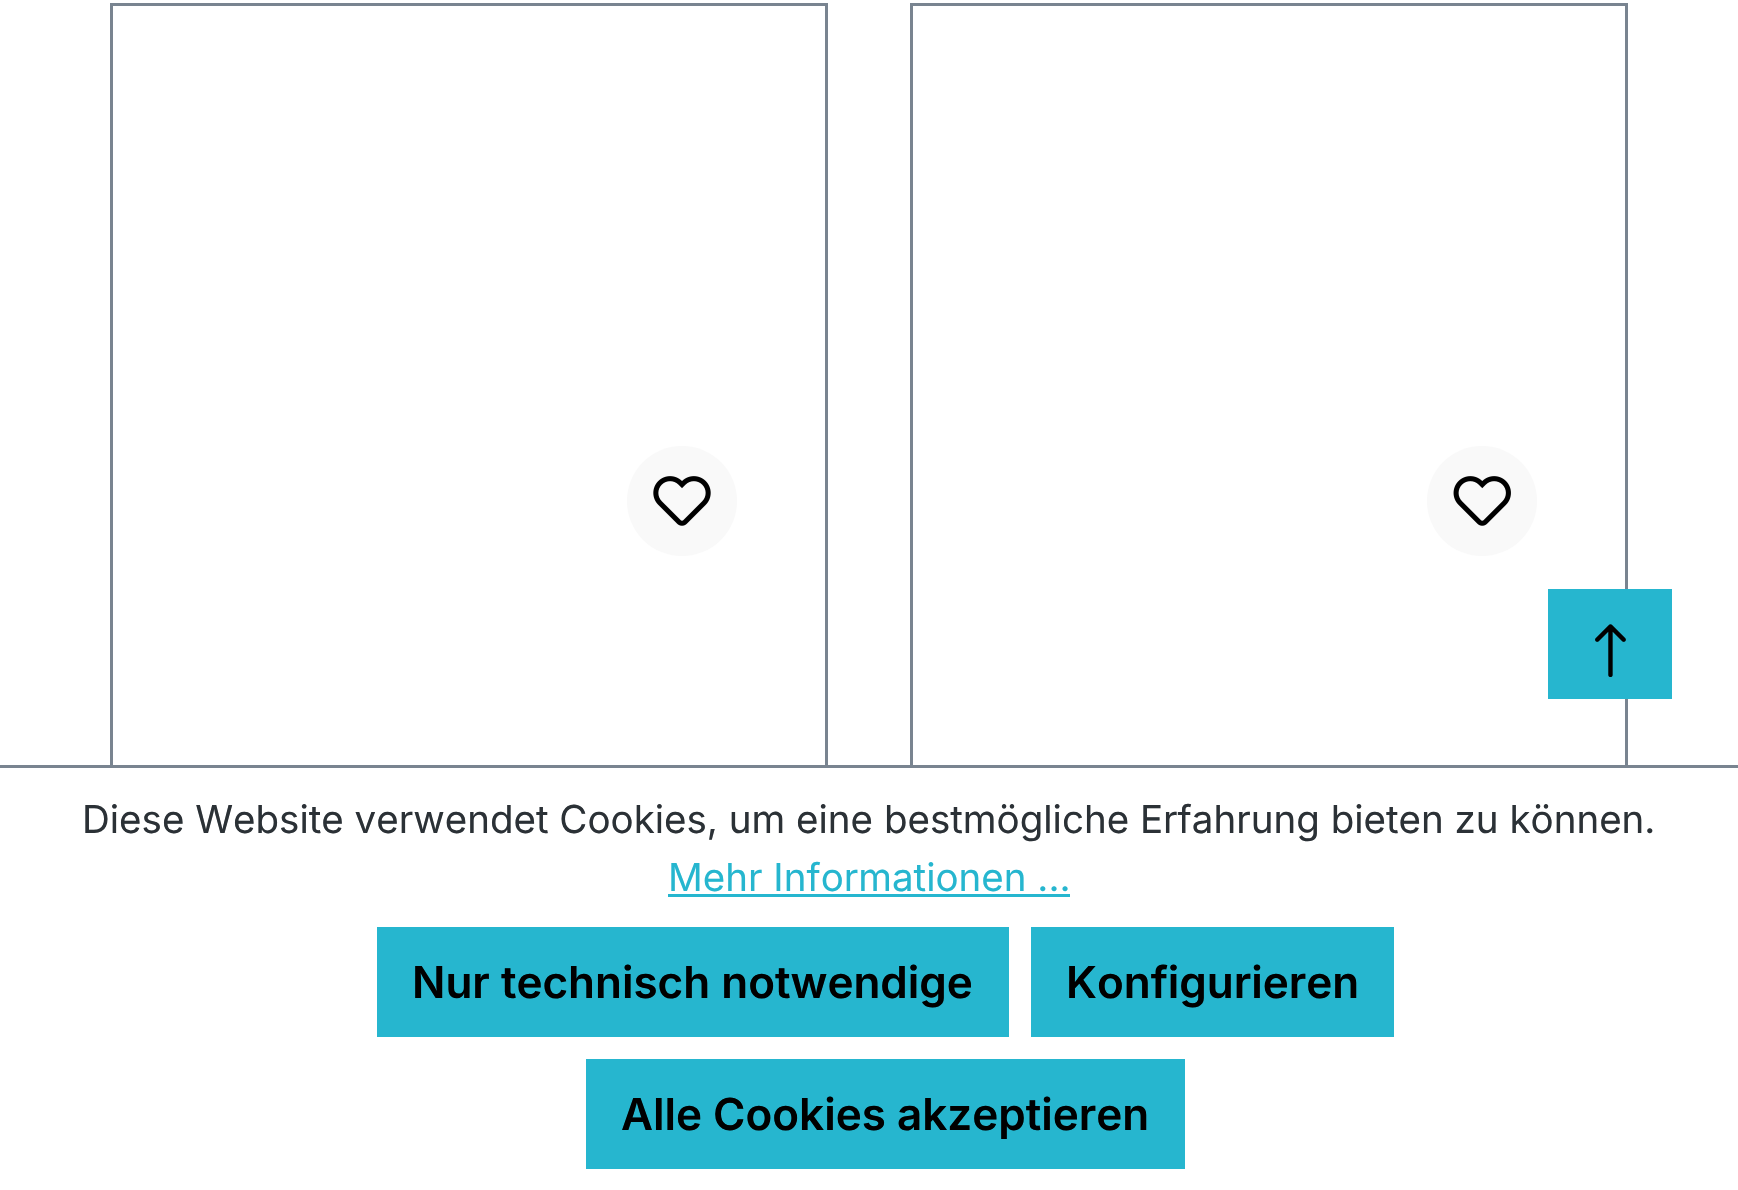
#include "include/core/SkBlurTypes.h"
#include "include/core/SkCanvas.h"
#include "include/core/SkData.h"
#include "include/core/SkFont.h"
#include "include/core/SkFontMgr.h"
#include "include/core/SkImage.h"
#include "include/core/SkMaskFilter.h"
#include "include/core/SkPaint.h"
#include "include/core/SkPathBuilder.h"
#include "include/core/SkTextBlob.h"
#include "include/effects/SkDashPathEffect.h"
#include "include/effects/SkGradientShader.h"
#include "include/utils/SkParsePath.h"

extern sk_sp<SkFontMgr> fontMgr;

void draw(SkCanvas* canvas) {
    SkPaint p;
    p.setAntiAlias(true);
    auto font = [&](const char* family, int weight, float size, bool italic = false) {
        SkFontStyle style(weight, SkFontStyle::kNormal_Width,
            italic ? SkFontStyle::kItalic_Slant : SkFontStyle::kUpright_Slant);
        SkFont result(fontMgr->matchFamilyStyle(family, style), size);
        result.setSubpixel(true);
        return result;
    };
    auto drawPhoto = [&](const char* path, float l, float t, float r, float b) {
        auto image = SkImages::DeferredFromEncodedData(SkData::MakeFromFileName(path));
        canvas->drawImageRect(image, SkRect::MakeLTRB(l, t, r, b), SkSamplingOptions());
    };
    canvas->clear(0xFFFFFFFF);
    p.setStyle(SkPaint::kStroke_Style);
    p.setStrokeWidth(3);
    p.setColor(0xFF798490);
    canvas->drawRect(SkRect::MakeLTRB(111.5f, 4.5f, 826.5f, 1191.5f), p);
    p.setStyle(SkPaint::kFill_Style);
    p.setColor(0xFFF9F9F9);
    canvas->drawCircle(682, 501, 55, p);
    drawPhoto("media/1.png", 653, 476, 711, 526);
    p.setStyle(SkPaint::kStroke_Style);
    p.setColor(0xFF798490);
    canvas->drawRect(SkRect::MakeLTRB(911.5f, 4.5f, 1626.5f, 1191.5f), p);
    p.setStyle(SkPaint::kFill_Style);
    p.setColor(0xFFF9F9F9);
    canvas->drawCircle(1482, 501, 55, p);
    drawPhoto("media/2.png", 1453, 476, 1511, 526);
    p.setColor(0xFF26B6CF);
    canvas->drawRect(SkRect::MakeLTRB(1548, 589, 1672, 699), p);
    drawPhoto("media/3.png", 1595, 624, 1626, 677);
    p.setColor(0xFFFFFFFF);
    canvas->drawRect(SkRect::MakeLTRB(110, 768, 1628, 1190), p);
    p.setColor(0xFF798490);
    canvas->drawRect(SkRect::MakeLTRB(0, 765, 1738, 768), p);
    auto font1 = font("Inter", 400, 38.5f);
    p.setColor(0xFF2B3136);
    canvas->drawString("Diese Website verwendet Cookies, um eine bestmögliche Erfahrung bieten zu können.", 82, 833, font1, p);
    p.setColor(0xFF26B6CF);
    canvas->drawString("Mehr Informationen ...", 668, 891, font1, p);
    canvas->drawRect(SkRect::MakeLTRB(668, 894, 1070, 897), p);
    canvas->drawRect(SkRect::MakeLTRB(377, 927, 1009, 1037), p);
    auto font2 = font("Inter", 600, 44);
    p.setColor(0xFF000000);
    canvas->drawString("Nur technisch notwendige", 412, 998, font2, p);
    p.setColor(0xFF26B6CF);
    canvas->drawRect(SkRect::MakeLTRB(1031, 927, 1394, 1037), p);
    p.setColor(0xFF000000);
    canvas->drawString("Konfigurieren", 1066, 998, font2, p);
    p.setColor(0xFF26B6CF);
    canvas->drawRect(SkRect::MakeLTRB(586, 1059, 1185, 1169), p);
    p.setColor(0xFF000000);
    canvas->drawString("Alle Cookies akzeptieren", 621, 1130, font2, p);
}
